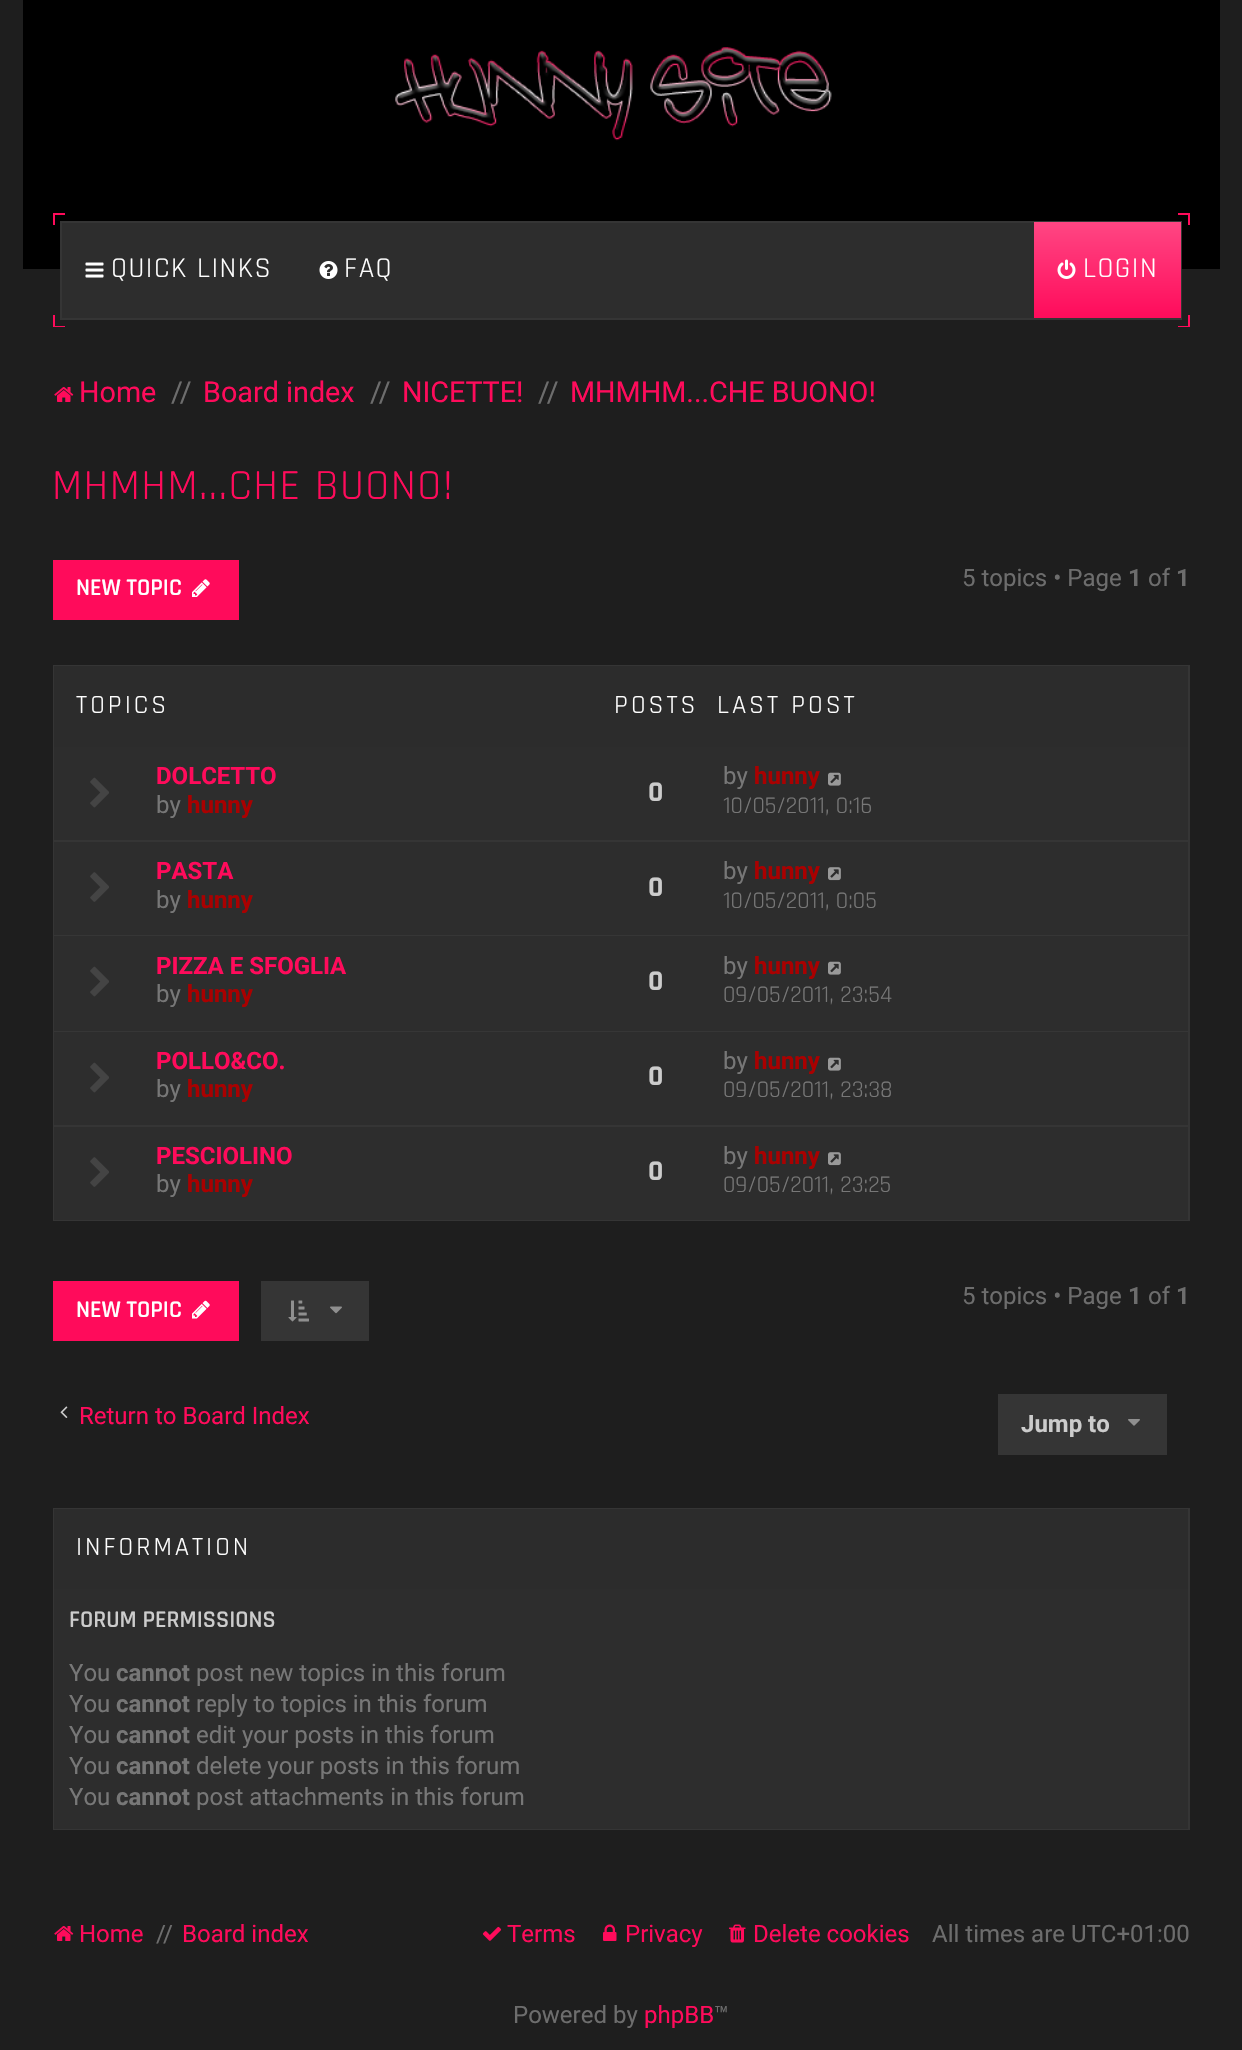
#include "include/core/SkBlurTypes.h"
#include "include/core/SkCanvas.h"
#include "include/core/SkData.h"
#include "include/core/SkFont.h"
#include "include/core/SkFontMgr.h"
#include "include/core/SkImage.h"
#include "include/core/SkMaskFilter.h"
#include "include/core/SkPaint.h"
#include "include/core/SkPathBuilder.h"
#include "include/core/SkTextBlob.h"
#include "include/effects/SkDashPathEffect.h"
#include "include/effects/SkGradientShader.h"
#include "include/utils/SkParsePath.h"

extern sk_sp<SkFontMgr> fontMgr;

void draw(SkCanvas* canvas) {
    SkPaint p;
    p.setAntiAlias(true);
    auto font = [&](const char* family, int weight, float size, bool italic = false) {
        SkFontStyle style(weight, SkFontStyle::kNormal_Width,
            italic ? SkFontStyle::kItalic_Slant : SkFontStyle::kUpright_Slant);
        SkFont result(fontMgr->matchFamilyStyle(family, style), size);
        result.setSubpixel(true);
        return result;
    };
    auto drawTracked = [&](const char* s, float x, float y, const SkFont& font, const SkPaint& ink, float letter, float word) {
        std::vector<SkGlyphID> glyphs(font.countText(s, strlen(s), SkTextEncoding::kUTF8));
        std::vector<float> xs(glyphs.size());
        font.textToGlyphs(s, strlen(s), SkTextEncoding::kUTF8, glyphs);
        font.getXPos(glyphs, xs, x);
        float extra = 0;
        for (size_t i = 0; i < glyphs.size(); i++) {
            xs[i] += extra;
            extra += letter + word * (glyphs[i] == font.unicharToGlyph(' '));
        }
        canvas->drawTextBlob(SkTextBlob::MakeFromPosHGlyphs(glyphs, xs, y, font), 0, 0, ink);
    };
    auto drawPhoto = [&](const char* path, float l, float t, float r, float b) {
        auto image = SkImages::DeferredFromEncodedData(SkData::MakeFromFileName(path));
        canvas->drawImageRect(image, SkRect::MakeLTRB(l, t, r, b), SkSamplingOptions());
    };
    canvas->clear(0xFF1E1E1E);
    p.setColor(0xFF000000);
    canvas->drawRect(SkRect::MakeLTRB(23, 0, 1220, 269), p);
    drawPhoto("media/1.png", 395, 47, 832, 141);
    {
        const struct { float l, t, r, b; SkColor color; } items[] = {
            {1178, 326, 1190, 327, 0xFFFF0B5B},
            {53, 326, 65, 327, 0xFFFF0B5B},
            {1178, 213, 1190, 215, 0xFFFF0B5B},
            {53, 213, 65, 215, 0xFFFF0B5B},
            {1188, 315, 1190, 327, 0xFFFF0B5B},
            {1188, 213, 1190, 225, 0xFFFF0B5B},
            {53, 315, 55, 327, 0xFFFF0B5B},
            {53, 213, 55, 225, 0xFFFF0B5B},
            {62, 223, 1034, 318, 0xFF2D2D2D},
        };
        for (auto [l, t, r, b, color] : items) {
            p.setColor(color);
            canvas->drawRect(SkRect::MakeLTRB(l, t, r, b), p);
        }
    }
    p.setStyle(SkPaint::kStroke_Style);
    p.setStrokeWidth(2);
    p.setColor(0xFF353535);
    canvas->drawRect(SkRect::MakeLTRB(61, 222, 1181, 319), p);
    drawPhoto("media/2.png", 85, 262, 104, 278);
    auto font1 = font("Rajdhani", 400, 28.75f);
    p.setStyle(SkPaint::kFill_Style);
    p.setColor(0xFFFFFFFF);
    drawTracked("QUICK LINKS", 111, 277, font1, p, 1.5f, 0);
    drawPhoto("media/3.png", 319, 261, 338, 279);
    drawTracked("FAQ", 344, 277, font1, p, 1.5f, 0);
    {
        const SkColor colors[] = {0xFFFF0B5B, 0xFFFF4683};
        const float stops[] = {0, 1};
        const SkPoint ends[] = {{1107, 318}, {1107, 222}};
        p.setShader(SkGradientShader::MakeLinear(ends, colors, stops, 2, SkTileMode::kClamp));
        p.setAlpha(255);
    }
    canvas->drawRect(SkRect::MakeLTRB(1034, 222, 1181, 318), p);
    drawPhoto("media/4.png", 1057, 259, 1076, 279);
    p.setShader(nullptr);
    p.setColor(0xFFFFFFFF);
    drawTracked("LOGIN", 1083, 277, font1, p, 1.5f, 0);
    drawPhoto("media/5.png", 54, 387, 74, 402);
    auto font2 = font("Roboto", 400, 28.75f);
    p.setColor(0xFFFF0B5B);
    canvas->drawString("Home", 79, 402, font2, p);
    p.setColor(0xFF6D6D6D);
    drawTracked("//", 171, 402, font2, p, -3, 0);
    p.setColor(0xFFFF0B5B);
    canvas->drawString("Board index", 203, 402, font2, p);
    p.setColor(0xFF6D6D6D);
    drawTracked("//", 370, 402, font2, p, -3, 0);
    p.setColor(0xFFFF0B5B);
    canvas->drawString("NICETTE!", 402, 402, font2, p);
    p.setColor(0xFF6D6D6D);
    drawTracked("//", 538, 402, font2, p, -3, 0);
    p.setColor(0xFFFF0B5B);
    canvas->drawString("MHMHM...CHE BUONO!", 570, 402, font2, p);
    auto font3 = font("Rajdhani", 400, 43.25f);
    drawTracked("MHMHM...CHE BUONO!", 52, 499, font3, p, 1.5f, 0);
    canvas->drawRect(SkRect::MakeLTRB(53, 560, 239, 620), p);
    auto font4 = font("Rajdhani", 600, 24);
    p.setColor(0xFFFFFFFF);
    canvas->drawString("NEW TOPIC", 76, 595, font4, p);
    drawPhoto("media/6.png", 192, 579, 210, 597);
    auto font5 = font("Roboto", 400, 24);
    p.setColor(0xFF6D6D6D);
    canvas->drawString("5 topics • Page", 962, 586, font5, p);
    auto font6 = font("Roboto", 700, 24);
    canvas->drawString("1", 1128, 586, font6, p);
    canvas->drawString("of", 1148, 586, font5, p);
    canvas->drawString("1", 1176, 586, font6, p);
    p.setStyle(SkPaint::kStroke_Style);
    p.setColor(0xFF353535);
    canvas->drawRect(SkRect::MakeLTRB(54, 666, 1189, 1220), p);
    p.setStyle(SkPaint::kFill_Style);
    p.setColor(0xFF2C2C2C);
    canvas->drawRect(SkRect::MakeLTRB(54, 666, 1188, 747), p);
    auto font7 = font("Rajdhani", 400, 26.5f);
    p.setColor(0xFFFFFFFF);
    {
        const struct { const char* s; float x, y; } items[] = {
            {"TOPICS", 76, 713},
            {"POSTS", 614, 713},
            {"LAST POST", 717, 713},
        };
        for (auto [s, x, y] : items) {
            drawTracked(s, x, y, font7, p, 3, 0);
        }
    }
    p.setColor(0xFF2D2D2D);
    canvas->drawRect(SkRect::MakeLTRB(54, 747, 1188, 840), p);
    p.setColor(0xFF353535);
    canvas->drawRect(SkRect::MakeLTRB(54, 840, 1188, 842), p);
    drawPhoto("media/7.png", 90, 777, 109, 808);
    p.setColor(0xFFFF0B5B);
    canvas->drawString("DOLCETTO", 156, 784, font6, p);
    p.setColor(0xFF777777);
    canvas->drawString("by", 156, 813, font5, p);
    p.setColor(0xFFAA0000);
    canvas->drawString("hunny", 187, 813, font6, p);
    auto font8 = font("Rajdhani", 700, 28.75f);
    p.setColor(0xFFCCCCCC);
    canvas->drawString("0", 648, 801, font8, p);
    p.setColor(0xFF777777);
    canvas->drawString("by", 723, 784, font5, p);
    p.setColor(0xFFAA0000);
    canvas->drawString("hunny", 754, 784, font6, p);
    drawPhoto("media/8.png", 828, 772, 841, 786);
    auto font9 = font("Rajdhani", 400, 24);
    p.setColor(0xFF777777);
    canvas->drawString("10/05/2011, 0:16", 723, 813, font9, p);
    p.setColor(0xFF2D2D2D);
    canvas->drawRect(SkRect::MakeLTRB(54, 842, 1188, 1125), p);
    p.setColor(0x0AFFFFFF);
    canvas->drawRect(SkRect::MakeLTRB(54, 935, 1188, 936), p);
    drawPhoto("media/9.png", 90, 872, 109, 902);
    p.setColor(0xFFFF0B5B);
    canvas->drawString("PASTA", 156, 879, font6, p);
    p.setColor(0xFF777777);
    canvas->drawString("by", 156, 908, font5, p);
    p.setColor(0xFFAA0000);
    canvas->drawString("hunny", 187, 908, font6, p);
    p.setColor(0xFFCCCCCC);
    canvas->drawString("0", 648, 896, font8, p);
    p.setColor(0xFF777777);
    canvas->drawString("by", 723, 879, font5, p);
    p.setColor(0xFFAA0000);
    canvas->drawString("hunny", 754, 879, font6, p);
    drawPhoto("media/10.png", 828, 867, 841, 881);
    p.setColor(0xFF777777);
    canvas->drawString("10/05/2011, 0:05", 723, 908, font9, p);
    p.setColor(0x0AFFFFFF);
    canvas->drawRect(SkRect::MakeLTRB(54, 1031, 1188, 1032), p);
    drawPhoto("media/7.png", 90, 966, 109, 997);
    p.setColor(0xFFFF0B5B);
    canvas->drawString("PIZZA E SFOGLIA", 156, 974, font6, p);
    p.setColor(0xFF777777);
    canvas->drawString("by", 156, 1002, font5, p);
    p.setColor(0xFFAA0000);
    canvas->drawString("hunny", 187, 1002, font6, p);
    p.setColor(0xFFCCCCCC);
    canvas->drawString("0", 648, 990, font8, p);
    p.setColor(0xFF777777);
    canvas->drawString("by", 723, 974, font5, p);
    p.setColor(0xFFAA0000);
    canvas->drawString("hunny", 754, 974, font6, p);
    drawPhoto("media/8.png", 828, 961, 841, 975);
    p.setColor(0xFF777777);
    canvas->drawString("09/05/2011, 23:54", 723, 1002, font9, p);
    p.setColor(0xFF353535);
    canvas->drawRect(SkRect::MakeLTRB(54, 1125, 1188, 1127), p);
    drawPhoto("media/7.png", 90, 1062, 109, 1093);
    p.setColor(0xFFFF0B5B);
    canvas->drawString("POLLO&CO.", 156, 1069, font6, p);
    p.setColor(0xFF777777);
    canvas->drawString("by", 156, 1097, font5, p);
    p.setColor(0xFFAA0000);
    canvas->drawString("hunny", 187, 1097, font6, p);
    p.setColor(0xFFCCCCCC);
    canvas->drawString("0", 648, 1085, font8, p);
    p.setColor(0xFF777777);
    canvas->drawString("by", 723, 1069, font5, p);
    p.setColor(0xFFAA0000);
    canvas->drawString("hunny", 754, 1069, font6, p);
    drawPhoto("media/8.png", 828, 1057, 841, 1071);
    p.setColor(0xFF777777);
    canvas->drawString("09/05/2011, 23:38", 723, 1097, font9, p);
    p.setColor(0xFF2D2D2D);
    canvas->drawRect(SkRect::MakeLTRB(54, 1127, 1188, 1220), p);
    drawPhoto("media/9.png", 90, 1157, 109, 1187);
    p.setColor(0xFFFF0B5B);
    canvas->drawString("PESCIOLINO", 156, 1164, font6, p);
    p.setColor(0xFF777777);
    canvas->drawString("by", 156, 1192, font5, p);
    p.setColor(0xFFAA0000);
    canvas->drawString("hunny", 187, 1192, font6, p);
    p.setColor(0xFFCCCCCC);
    canvas->drawString("0", 648, 1180, font8, p);
    p.setColor(0xFF777777);
    canvas->drawString("by", 723, 1164, font5, p);
    p.setColor(0xFFAA0000);
    canvas->drawString("hunny", 754, 1164, font6, p);
    drawPhoto("media/10.png", 828, 1152, 841, 1166);
    p.setColor(0xFF777777);
    canvas->drawString("09/05/2011, 23:25", 723, 1192, font9, p);
    p.setColor(0xFFFF0B5B);
    canvas->drawRect(SkRect::MakeLTRB(53, 1281, 239, 1341), p);
    p.setColor(0xFFFFFFFF);
    canvas->drawString("NEW TOPIC", 76, 1317, font4, p);
    drawPhoto("media/11.png", 192, 1300, 210, 1319);
    p.setColor(0xFF353535);
    canvas->drawRect(SkRect::MakeLTRB(261, 1281, 369, 1341), p);
    drawPhoto("media/12.png", 288, 1300, 309, 1322);
    drawPhoto("media/13.png", 330, 1306, 342, 1314);
    p.setColor(0xFF6D6D6D);
    canvas->drawString("5 topics • Page", 962, 1304, font5, p);
    canvas->drawString("1", 1128, 1304, font6, p);
    canvas->drawString("of", 1148, 1304, font5, p);
    canvas->drawString("1", 1176, 1304, font6, p);
    drawPhoto("media/14.png", 60, 1406, 68, 1418);
    p.setColor(0xFFFF0B5B);
    canvas->drawString("Return to Board Index", 79, 1424, font5, p);
    p.setColor(0xFF353535);
    canvas->drawRect(SkRect::MakeLTRB(998, 1394, 1167, 1455), p);
    p.setColor(0xFFCCCCCC);
    canvas->drawString("Jump to", 1021, 1432, font6, p);
    drawPhoto("media/15.png", 1128, 1419, 1140, 1426);
    p.setStyle(SkPaint::kStroke_Style);
    p.setColor(0xFF353535);
    canvas->drawRect(SkRect::MakeLTRB(54, 1509, 1189, 1829), p);
    p.setStyle(SkPaint::kFill_Style);
    p.setColor(0xFF2C2C2C);
    canvas->drawRect(SkRect::MakeLTRB(54, 1509, 1188, 1589), p);
    p.setColor(0xFFFFFFFF);
    drawTracked("INFORMATION", 76, 1555, font7, p, 3, 0);
    p.setColor(0xFF2D2D2D);
    canvas->drawRect(SkRect::MakeLTRB(54, 1589, 1188, 1829), p);
    p.setColor(0xFFCCCCCC);
    canvas->drawString("FORUM PERMISSIONS", 69, 1627, font4, p);
    p.setColor(0xFF777777);
    canvas->drawString("You", 69, 1681, font5, p);
    canvas->drawString("cannot", 116, 1681, font6, p);
    canvas->drawString("post new topics in this forum", 196, 1681, font5, p);
    canvas->drawString("You", 69, 1712, font5, p);
    canvas->drawString("cannot", 116, 1712, font6, p);
    canvas->drawString("reply to topics in this forum", 196, 1712, font5, p);
    canvas->drawString("You", 69, 1743, font5, p);
    canvas->drawString("cannot", 116, 1743, font6, p);
    canvas->drawString("edit your posts in this forum", 196, 1743, font5, p);
    canvas->drawString("You", 69, 1774, font5, p);
    canvas->drawString("cannot", 116, 1774, font6, p);
    canvas->drawString("delete your posts in this forum", 196, 1774, font5, p);
    canvas->drawString("You", 69, 1805, font5, p);
    canvas->drawString("cannot", 116, 1805, font6, p);
    canvas->drawString("post attachments in this forum", 196, 1805, font5, p);
    drawPhoto("media/5.png", 54, 1926, 74, 1941);
    p.setColor(0xFFFF0B5B);
    canvas->drawString("Home", 79, 1942, font5, p);
    p.setColor(0xFF6D6D6D);
    drawTracked("//", 156, 1942, font5, p, -3, 0);
    p.setColor(0xFFFF0B5B);
    canvas->drawString("Board index", 182, 1942, font5, p);
    drawPhoto("media/16.png", 482, 1926, 502, 1941);
    canvas->drawString("Terms", 507, 1942, font5, p);
    drawPhoto("media/17.png", 603, 1924, 617, 1941);
    canvas->drawString("Privacy", 625, 1942, font5, p);
    drawPhoto("media/18.png", 729, 1924, 746, 1943);
    canvas->drawString("Delete cookies", 753, 1942, font5, p);
    p.setColor(0xFF6D6D6D);
    canvas->drawString("All times are UTC+01:00", 932, 1942, font5, p);
    canvas->drawString("Powered by", 513, 2023, font5, p);
    p.setColor(0xFFFF0B5B);
    canvas->drawString("phpBB", 644, 2023, font5, p);
    p.setColor(0xFF6D6D6D);
    canvas->drawString("™", 714, 2023, font5, p);
}
